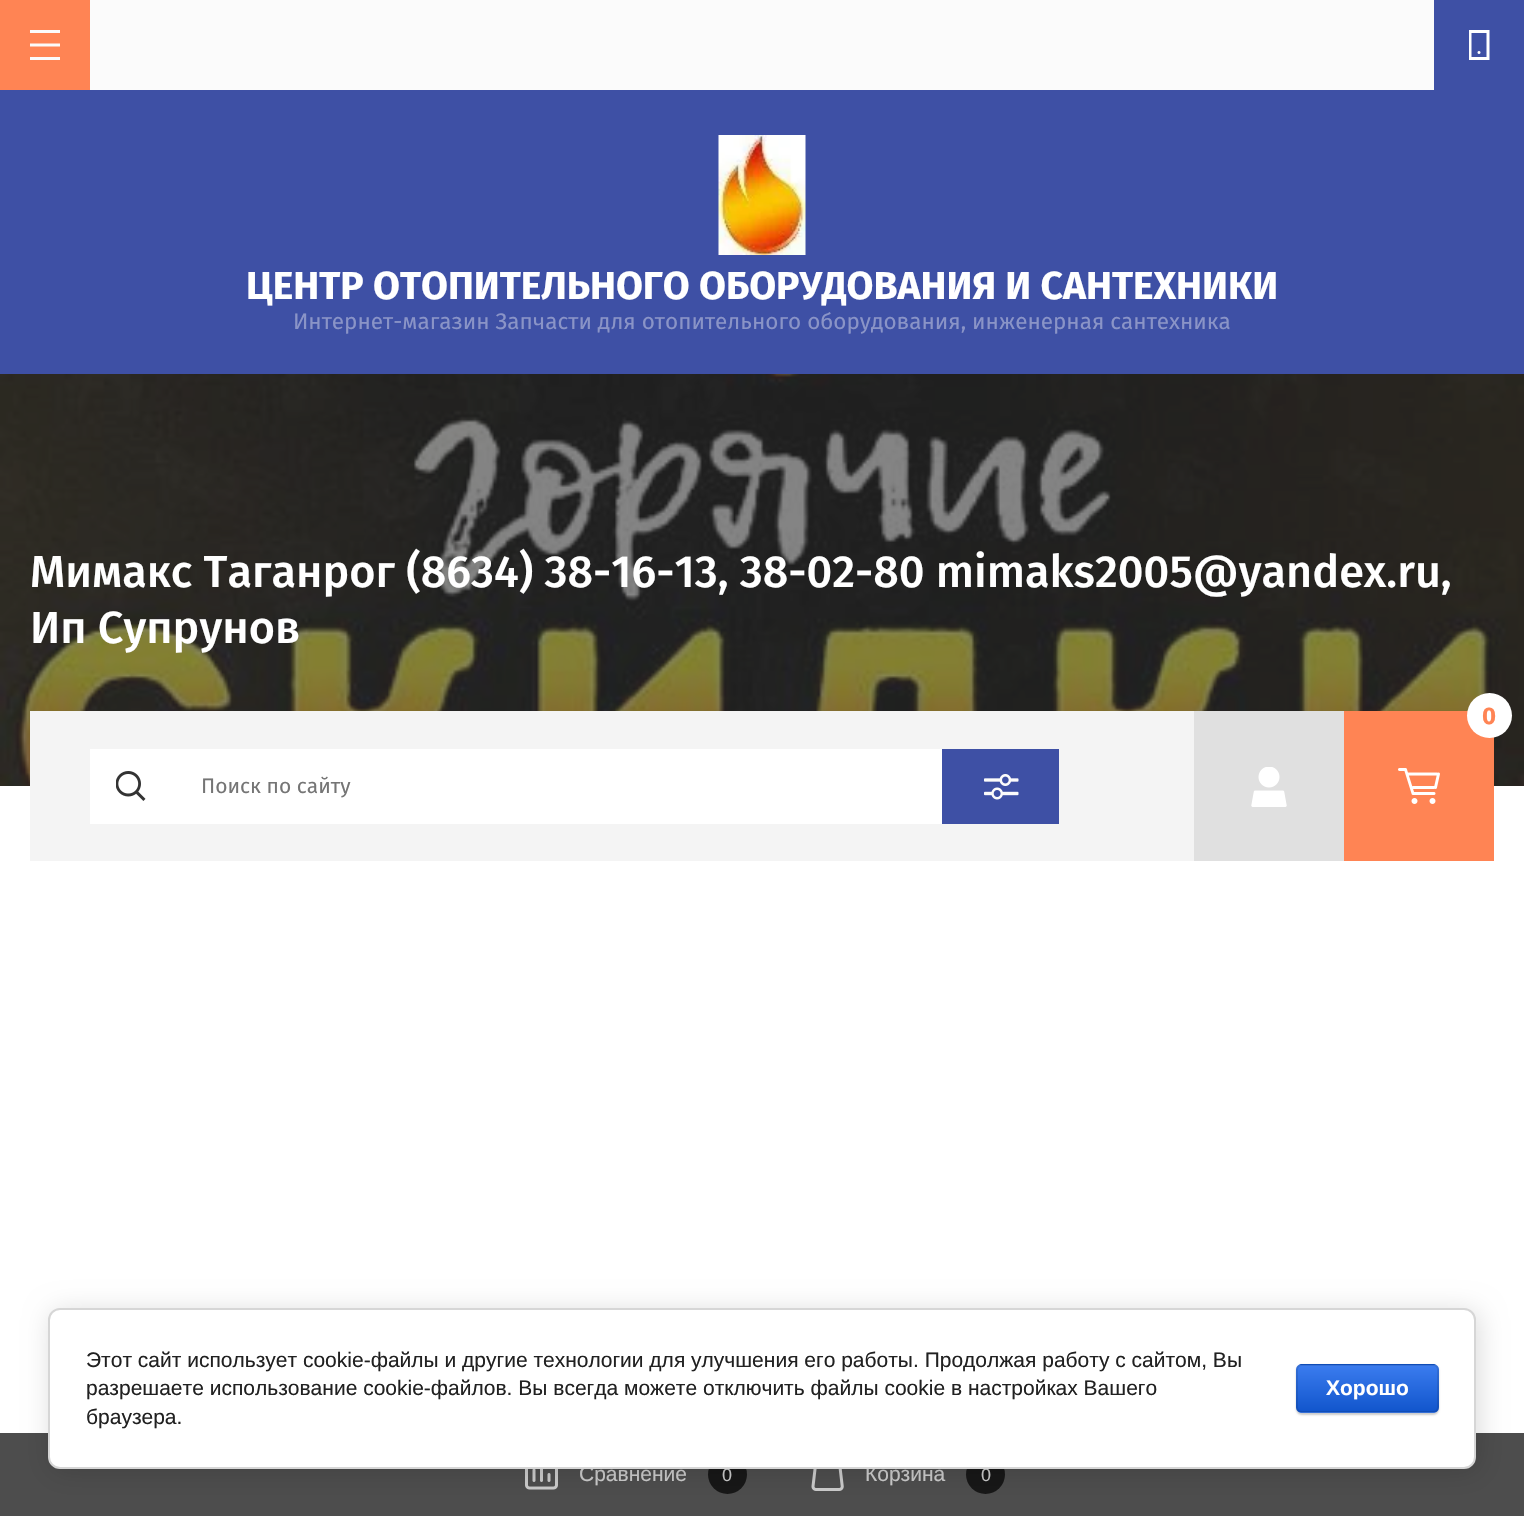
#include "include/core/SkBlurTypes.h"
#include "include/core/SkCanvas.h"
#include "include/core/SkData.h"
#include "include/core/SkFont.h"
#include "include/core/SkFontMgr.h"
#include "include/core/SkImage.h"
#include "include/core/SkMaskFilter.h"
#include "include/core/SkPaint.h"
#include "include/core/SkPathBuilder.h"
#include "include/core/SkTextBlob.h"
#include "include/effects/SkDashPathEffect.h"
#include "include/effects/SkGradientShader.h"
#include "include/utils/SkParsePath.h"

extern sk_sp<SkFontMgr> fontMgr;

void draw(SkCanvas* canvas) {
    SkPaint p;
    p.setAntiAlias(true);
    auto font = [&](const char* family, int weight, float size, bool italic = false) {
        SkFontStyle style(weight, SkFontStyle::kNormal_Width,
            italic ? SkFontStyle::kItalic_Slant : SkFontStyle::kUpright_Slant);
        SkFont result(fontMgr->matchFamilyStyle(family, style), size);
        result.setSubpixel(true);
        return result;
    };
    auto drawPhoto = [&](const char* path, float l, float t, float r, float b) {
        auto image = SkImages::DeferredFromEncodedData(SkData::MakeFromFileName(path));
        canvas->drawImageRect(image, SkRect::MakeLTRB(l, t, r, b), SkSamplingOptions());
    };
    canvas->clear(0xFFFFFFFF);
    p.setColor(0xFFFBFBFB);
    canvas->drawRect(SkRect::MakeLTRB(90, 0, 1434, 90), p);
    p.setColor(0xFFFF8454);
    canvas->drawRect(SkRect::MakeLTRB(0, 0, 90, 90), p);
    drawPhoto("media/1.png", 30, 30, 60, 60);
    p.setColor(0xFF3E50A5);
    canvas->drawRect(SkRect::MakeLTRB(1434, 0, 1524, 90), p);
    drawPhoto("media/2.png", 1469, 30, 1490, 60);
    canvas->drawRect(SkRect::MakeLTRB(0, 90, 1524, 374), p);
    drawPhoto("media/3.png", 718, 135, 806, 255);
    auto font1 = font("Fira Sans", 700, 39);
    p.setColor(0xFFFFFFFF);
    canvas->drawString("ЦЕНТР ОТОПИТЕЛЬНОГО ОБОРУДОВАНИЯ И САНТЕХНИКИ", 246, 299, font1, p);
    auto font2 = font("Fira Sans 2", 400, 22.5f);
    p.setColor(0xFF8A94C7);
    canvas->drawString("Интернет-магазин Запчасти для отопительного оборудования, инженерная сантехника", 293, 329, font2, p);
    drawPhoto("media/4.png", 0, 374, 1524, 786);
    auto font3 = font("Fira Sans", 500, 45);
    p.setColor(0xFFFFFFFF);
    canvas->drawString("Мимакс Таганрог (8634) 38-16-13, 38-02-80 mimaks2005@yandex.ru,", 30, 587, font3, p);
    canvas->drawString("Ип Супрунов", 30, 643, font3, p);
    p.setColor(0xFFE0E0E0);
    canvas->drawRect(SkRect::MakeLTRB(1194, 711, 1344, 861), p);
    drawPhoto("media/5.png", 1251, 767, 1287, 807);
    p.setColor(0xFFFF8454);
    canvas->drawRect(SkRect::MakeLTRB(1344, 711, 1494, 861), p);
    drawPhoto("media/6.png", 1398, 768, 1440, 804);
    p.setColor(0xFFFFFFFF);
    canvas->drawCircle(1489.5f, 715.5f, 22.5f, p);
    auto font4 = font("Fira Sans", 700, 24);
    p.setColor(0xFFFF8454);
    canvas->drawString("0", 1482, 724, font4, p);
    p.setColor(0xFFF4F4F4);
    canvas->drawRect(SkRect::MakeLTRB(30, 711, 1194, 861), p);
    p.setColor(0xFFFFFFFF);
    canvas->drawRect(SkRect::MakeLTRB(90, 749, 942, 824), p);
    drawPhoto("media/7.png", 116, 771, 146, 801);
    auto font5 = font("Fira Sans", 400, 21);
    p.setColor(0xFF757575);
    canvas->drawString("Поиск по сайту", 201, 793, font5, p);
    p.setColor(0xFF3E50A5);
    canvas->drawRect(SkRect::MakeLTRB(942, 749, 1059, 824), p);
    drawPhoto("media/8.png", 984, 774, 1019, 800);
    p.setColor(0xFF4D4D4D);
    canvas->drawRect(SkRect::MakeLTRB(0, 1433, 1524, 1516), p);
    drawPhoto("media/9.png", 525, 1469, 558, 1490);
    auto font6 = font("Liberation Sans", 400, 21);
    p.setColor(0xFFCACACA);
    canvas->drawString("Сравнение", 579, 1481, font6, p);
    p.setColor(0xFF171717);
    canvas->drawCircle(727.5f, 1474.5f, 19.5f, p);
    auto font7 = font("Liberation Sans", 400, 18);
    p.setColor(0xFFCACACA);
    canvas->drawString("0", 722, 1481, font7, p);
    drawPhoto("media/10.png", 811, 1469, 844, 1491);
    canvas->drawString("Корзина", 865, 1481, font6, p);
    p.setColor(0xFF171717);
    canvas->drawCircle(985.5f, 1474.5f, 19.5f, p);
    p.setColor(0xFFCACACA);
    canvas->drawString("0", 981, 1481, font7, p);
    p.setColor(0x24000000);
    p.setMaskFilter(SkMaskFilter::MakeBlur(kNormal_SkBlurStyle, 13.5f));
    canvas->drawRoundRect(SkRect::MakeLTRB(51, 1311, 1479, 1472), 12, 12, p);
    p.setMaskFilter(nullptr);
    p.setColor(0xFFFFFFFF);
    canvas->drawRoundRect(SkRect::MakeLTRB(49, 1309, 1475, 1468), 11, 11, p);
    p.setStyle(SkPaint::kStroke_Style);
    p.setStrokeWidth(2);
    p.setColor(0xFFD6D6D6);
    canvas->drawRoundRect(SkRect::MakeLTRB(49, 1309, 1475, 1468), 11, 11, p);
    p.setStyle(SkPaint::kFill_Style);
    p.setColor(0xFF212121);
    {
        const struct { const char* s; float x, y; } items[] = {
            {"Этот сайт использует cookie-файлы и другие технологии для улучшения его работы. Продолжая работу с сайтом, Вы", 86, 1367},
            {"разрешаете использование cookie-файлов. Вы всегда можете отключить файлы cookie в настройках Вашего", 86, 1395},
            {"браузера.", 86, 1424},
        };
        for (auto [s, x, y] : items) {
            canvas->drawString(s, x, y, font6, p);
        }
    }
    p.setColor(0x33000000);
    p.setMaskFilter(SkMaskFilter::MakeBlur(kNormal_SkBlurStyle, 1));
    canvas->drawRoundRect(SkRect::MakeLTRB(1296, 1365, 1439, 1415), 6, 6, p);
    p.setMaskFilter(nullptr);
    canvas->save();
    canvas->clipPath(SkPathBuilder().moveTo(1302, 1364).lineTo(1433, 1364).cubicTo(1436.5f, 1364, 1439, 1366.5f, 1439, 1370).lineTo(1439, 1407).cubicTo(1439, 1410.5f, 1436.5f, 1413, 1433, 1413).lineTo(1302, 1413).cubicTo(1298.5f, 1413, 1296, 1410.5f, 1296, 1407).lineTo(1296, 1370).cubicTo(1296, 1366.5f, 1298.5f, 1364, 1302, 1364).close().detach(), true);
    {
        const SkColor colors[] = {0xFF3B7CEF, 0xFF1155CC};
        const float stops[] = {0, 1};
        const SkPoint ends[] = {{1367, 1319}, {1367, 1365}};
        p.setShader(SkGradientShader::MakeLinear(ends, colors, stops, 2, SkTileMode::kClamp));
        p.setAlpha(255);
    }
    canvas->drawRect(SkRect::MakeLTRB(1296, 1364, 1439, 1365), p);
    {
        const SkColor colors[] = {0xFF3B7CEF, 0xFF1155CC};
        const float stops[] = {0, 1};
        const SkPoint ends[] = {{1367, 1365}, {1367, 1412}};
        p.setShader(SkGradientShader::MakeLinear(ends, colors, stops, 2, SkTileMode::kClamp));
        p.setAlpha(255);
    }
    canvas->drawRect(SkRect::MakeLTRB(1296, 1365, 1439, 1412), p);
    {
        const SkColor colors[] = {0xFF3B7CEF, 0xFF1155CC};
        const float stops[] = {0, 1};
        const SkPoint ends[] = {{1367, 1412}, {1367, 1458}};
        p.setShader(SkGradientShader::MakeLinear(ends, colors, stops, 2, SkTileMode::kClamp));
        p.setAlpha(255);
    }
    canvas->drawRect(SkRect::MakeLTRB(1296, 1412, 1439, 1413), p);
    canvas->restore();
    p.setStyle(SkPaint::kStroke_Style);
    p.setShader(nullptr);
    p.setColor(0x1A000000);
    canvas->drawRoundRect(SkRect::MakeLTRB(1297, 1365, 1438, 1412), 5, 5, p);
    auto font8 = font("Liberation Sans", 700, 21);
    p.setStyle(SkPaint::kFill_Style);
    p.setColor(0xFFFFFFFF);
    canvas->drawString("Хорошо", 1326, 1395, font8, p);
}
